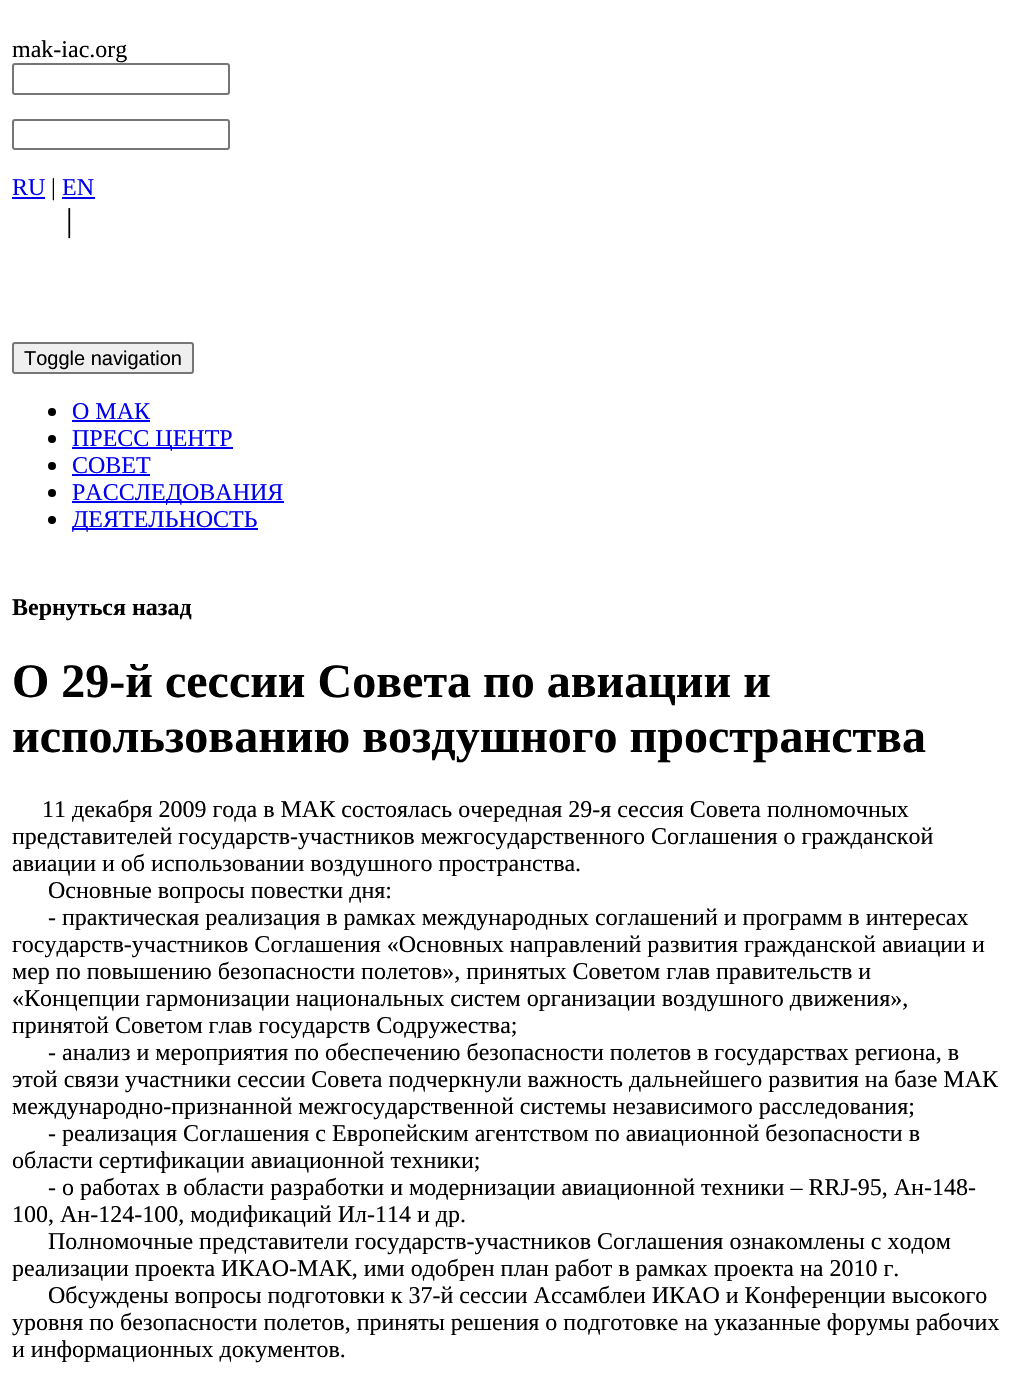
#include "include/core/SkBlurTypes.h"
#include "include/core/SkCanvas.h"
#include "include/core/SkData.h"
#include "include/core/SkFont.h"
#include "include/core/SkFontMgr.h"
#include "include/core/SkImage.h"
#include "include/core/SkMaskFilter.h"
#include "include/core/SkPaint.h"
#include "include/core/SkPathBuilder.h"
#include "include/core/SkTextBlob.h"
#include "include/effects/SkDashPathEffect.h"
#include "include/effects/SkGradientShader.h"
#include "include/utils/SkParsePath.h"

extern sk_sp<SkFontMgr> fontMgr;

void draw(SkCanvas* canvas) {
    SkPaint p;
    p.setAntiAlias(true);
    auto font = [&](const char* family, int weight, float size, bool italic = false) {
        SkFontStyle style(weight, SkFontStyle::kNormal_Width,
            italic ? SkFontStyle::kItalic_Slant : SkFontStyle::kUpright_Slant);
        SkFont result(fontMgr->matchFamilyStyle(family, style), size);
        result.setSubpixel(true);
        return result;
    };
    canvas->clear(0xFFFFFFFF);
    auto font1 = font("Liberation Serif", 400, 24);
    p.setColor(0xFF000000);
    canvas->drawString("mak-iac.org", 12, 57, font1, p);
    p.setStyle(SkPaint::kStroke_Style);
    p.setStrokeWidth(2);
    p.setColor(0xFF767676);
    canvas->drawRoundRect(SkRect::MakeLTRB(13, 64, 229, 94), 2, 2, p);
    canvas->drawRoundRect(SkRect::MakeLTRB(13, 120, 229, 149), 2, 2, p);
    p.setStyle(SkPaint::kFill_Style);
    p.setColor(0xFF0000EE);
    canvas->drawString("RU", 12, 195, font1, p);
    canvas->drawRect(SkRect::MakeLTRB(12, 197, 45, 199), p);
    p.setColor(0xFF000000);
    canvas->drawString("|", 51, 195, font1, p);
    p.setColor(0xFF0000EE);
    canvas->drawString("EN", 62, 195, font1, p);
    canvas->drawRect(SkRect::MakeLTRB(62, 197, 95, 199), p);
    auto font2 = font("Liberation Serif", 400, 33);
    p.setColor(0xFF000000);
    canvas->drawString("|", 66, 231, font2, p);
    p.setColor(0xFFEFEFEF);
    canvas->drawRoundRect(SkRect::MakeLTRB(13, 343, 193, 373), 2, 2, p);
    p.setStyle(SkPaint::kStroke_Style);
    p.setColor(0xFF767676);
    canvas->drawRoundRect(SkRect::MakeLTRB(13, 343, 193, 373), 2, 2, p);
    auto font3 = font("Liberation Sans", 400, 20);
    p.setStyle(SkPaint::kFill_Style);
    p.setColor(0xFF000000);
    canvas->drawString("Toggle navigation", 24, 365, font3, p);
    canvas->drawCircle(52, 412, 4, p);
    p.setColor(0xFF0000EE);
    canvas->drawString("О МАК", 72, 419, font1, p);
    canvas->drawRect(SkRect::MakeLTRB(72, 420, 150, 422), p);
    p.setColor(0xFF000000);
    canvas->drawCircle(52, 439, 4, p);
    p.setColor(0xFF0000EE);
    canvas->drawRect(SkRect::MakeLTRB(72, 447, 233, 449), p);
    canvas->drawString("ПРЕСС ЦЕНТР", 72, 446, font1, p);
    p.setColor(0xFF000000);
    canvas->drawCircle(52, 466, 4, p);
    p.setColor(0xFF0000EE);
    canvas->drawString("СОВЕТ", 72, 473, font1, p);
    canvas->drawRect(SkRect::MakeLTRB(72, 474, 150, 476), p);
    p.setColor(0xFF000000);
    canvas->drawCircle(52, 493, 4, p);
    p.setColor(0xFF0000EE);
    canvas->drawRect(SkRect::MakeLTRB(72, 501, 284, 503), p);
    canvas->drawString("РАССЛЕДОВАНИЯ", 72, 500, font1, p);
    p.setColor(0xFF000000);
    canvas->drawCircle(52, 520, 4, p);
    p.setColor(0xFF0000EE);
    canvas->drawRect(SkRect::MakeLTRB(72, 528, 258, 530), p);
    canvas->drawString("ДЕЯТЕЛЬНОСТЬ", 72, 527, font1, p);
    auto font4 = font("Liberation Serif", 700, 24);
    p.setColor(0xFF000000);
    canvas->drawString("Вернуться назад", 12, 615, font4, p);
    auto font5 = font("Liberation Serif", 700, 48);
    canvas->drawString("О 29-й сессии Совета по авиации и", 12, 697, font5, p);
    canvas->drawString("использованию воздушного пространства", 12, 752, font5, p);
    {
        const struct { const char* s; float x, y; } items[] = {
            {"11 декабря 2009 года в МАК состоялась очередная 29-я сессия Совета полномочных", 42, 817},
            {"представителей государств-участников межгосударственного Соглашения о гражданской", 12, 844},
            {"авиации и об использовании воздушного пространства.", 12, 871},
            {"Основные вопросы повестки дня:", 48, 898},
            {"- практическая реализация в рамках международных соглашений и программ в интересах", 48, 925},
            {"государств-участников Соглашения «Основных направлений развития гражданской авиации и", 12, 952},
            {"мер по повышению безопасности полетов», принятых Советом глав правительств и", 12, 979},
            {"«Концепции гармонизации национальных систем организации воздушного движения»,", 12, 1006},
            {"принятой Советом глав государств Содружества;", 12, 1033},
            {"- анализ и мероприятия по обеспечению безопасности полетов в государствах региона, в", 48, 1060},
            {"этой связи участники сессии Совета подчеркнули важность дальнейшего развития на базе МАК", 12, 1087},
            {"международно-признанной межгосударственной системы независимого расследования;", 12, 1114},
            {"- реализация Соглашения с Европейским агентством по авиационной безопасности в", 48, 1141},
            {"области сертификации авиационной техники;", 12, 1168},
            {"- о работах в области разработки и модернизации авиационной техники – RRJ-95, Ан-148-", 48, 1195},
            {"100, Ан-124-100, модификаций Ил-114 и др.", 12, 1222},
            {"Полномочные представители государств-участников Соглашения ознакомлены с ходом", 48, 1249},
            {"реализации проекта ИКАО-МАК, ими одобрен план работ в рамках проекта на 2010 г.", 12, 1276},
            {"Обсуждены вопросы подготовки к 37-й сессии Ассамблеи ИКАО и Конференции высокого", 48, 1303},
            {"уровня по безопасности полетов, приняты решения о подготовке на указанные форумы рабочих", 12, 1330},
            {"и информационных документов.", 12, 1357},
        };
        for (auto [s, x, y] : items) {
            canvas->drawString(s, x, y, font1, p);
        }
    }
}
